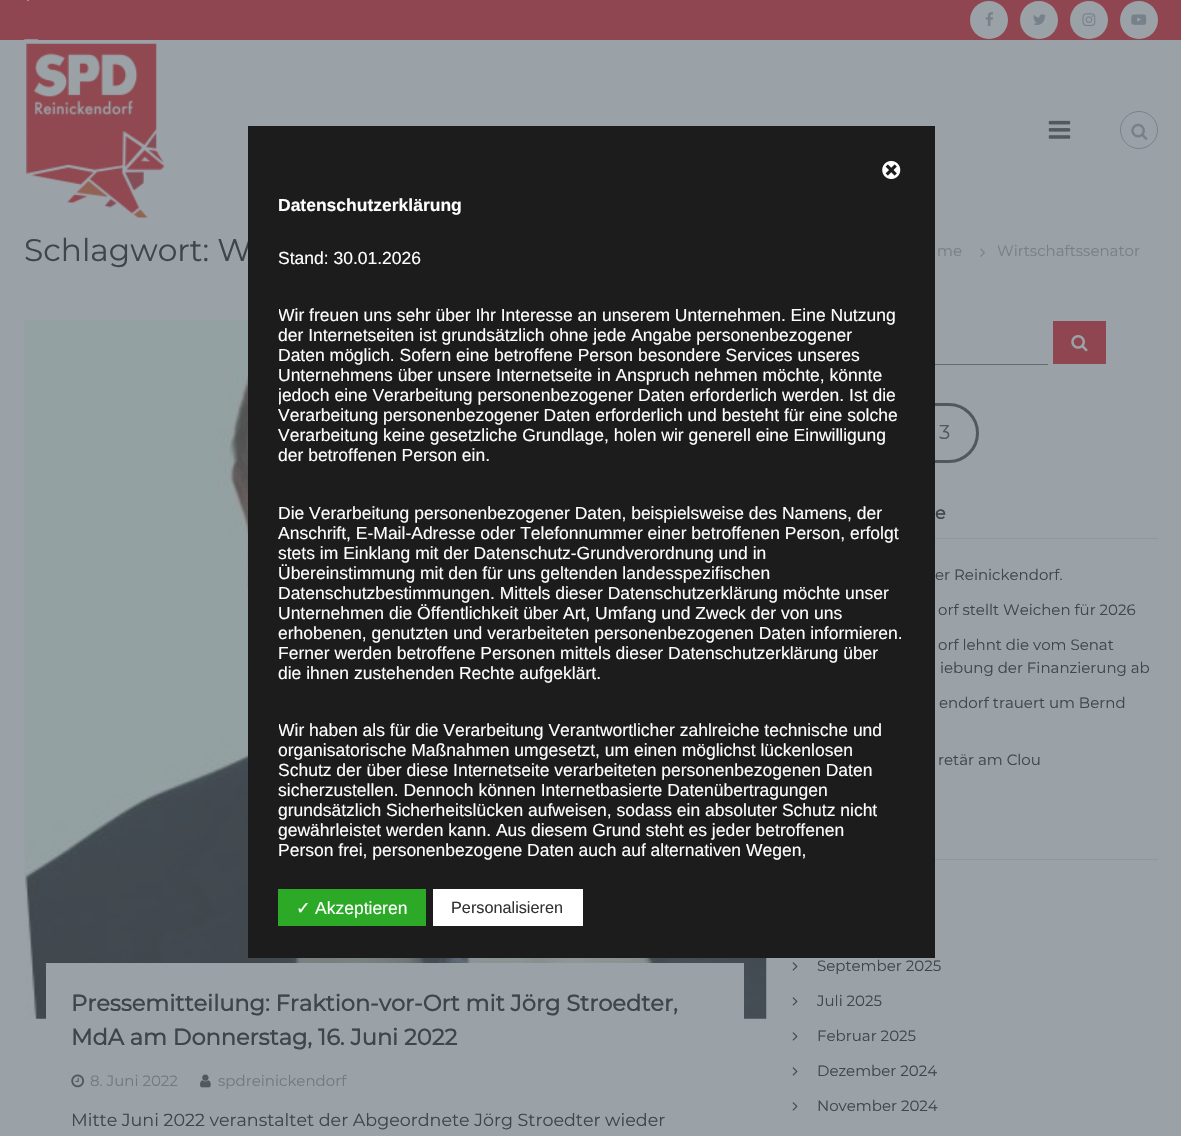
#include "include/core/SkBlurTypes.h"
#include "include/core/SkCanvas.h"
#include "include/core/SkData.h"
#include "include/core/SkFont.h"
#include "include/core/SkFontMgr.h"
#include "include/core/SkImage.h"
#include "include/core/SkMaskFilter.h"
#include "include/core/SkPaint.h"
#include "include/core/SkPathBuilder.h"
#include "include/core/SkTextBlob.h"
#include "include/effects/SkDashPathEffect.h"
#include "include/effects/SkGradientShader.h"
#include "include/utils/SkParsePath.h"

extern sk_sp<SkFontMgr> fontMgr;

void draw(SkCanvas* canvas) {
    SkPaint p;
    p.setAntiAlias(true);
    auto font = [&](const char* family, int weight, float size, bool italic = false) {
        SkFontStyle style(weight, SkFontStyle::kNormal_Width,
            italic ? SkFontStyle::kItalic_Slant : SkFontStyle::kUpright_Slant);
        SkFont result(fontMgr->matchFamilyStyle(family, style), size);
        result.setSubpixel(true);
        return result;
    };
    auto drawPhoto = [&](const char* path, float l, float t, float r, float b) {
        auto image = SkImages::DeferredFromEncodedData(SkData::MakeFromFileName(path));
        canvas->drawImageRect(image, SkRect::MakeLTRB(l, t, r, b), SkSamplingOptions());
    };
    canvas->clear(0xFF9BA2A7);
    auto font1 = font("Montserrat", 400, 31.25f);
    p.setColor(0xFF3F464B);
    canvas->drawString("Schlagwort: W", 24, 261, font1, p);
    drawPhoto("media/12.png", 23, 320, 767, 1019);
    p.setStyle(SkPaint::kStroke_Style);
    p.setStrokeWidth(3);
    p.setColor(0xFF51595D);
    canvas->drawRoundRect(SkRect::MakeLTRB(794.5f, 404.5f, 977.5f, 461.5f), 28.5f, 28.5f, p);
    p.setStyle(SkPaint::kFill_Style);
    p.setColor(0xFF1D1C1C);
    canvas->drawRect(SkRect::MakeLTRB(248, 126, 935, 958), p);
    drawPhoto("media/1.png", 882, 161, 901, 179);
    auto font2 = font("Liberation Sans", 700, 17.5f);
    p.setColor(0xFFFFFFFF);
    canvas->drawString("Datenschutzerklärung", 278, 211, font2, p);
    auto font3 = font("Liberation Sans", 400, 17.5f);
    canvas->drawString("Stand: 30.01.2026", 278, 264, font3, p);
    canvas->save();
    canvas->clipRect(SkRect::MakeLTRB(279, 183, 935, 864));
    canvas->drawString("Wir freuen uns sehr über Ihr Interesse an unserem Unternehmen. Eine Nutzung", 278, 321, font3, p);
    canvas->restore();
    {
        const struct { const char* s; float x, y; } items[] = {
            {"der Internetseiten ist grundsätzlich ohne jede Angabe personenbezogener", 278, 341},
            {"Daten möglich. Sofern eine betroffene Person besondere Services unseres", 278, 361},
            {"Unternehmens über unsere Internetseite in Anspruch nehmen möchte, könnte", 278, 381},
        };
        for (auto [s, x, y] : items) {
            canvas->drawString(s, x, y, font3, p);
        }
    }
    canvas->save();
    canvas->clipRect(SkRect::MakeLTRB(279, 183, 935, 864));
    canvas->drawString("jedoch eine Verarbeitung personenbezogener Daten erforderlich werden. Ist die", 278, 401, font3, p);
    canvas->restore();
    {
        const struct { const char* s; float x, y; } items[] = {
            {"Verarbeitung personenbezogener Daten erforderlich und besteht für eine solche", 278, 421},
            {"Verarbeitung keine gesetzliche Grundlage, holen wir generell eine Einwilligung", 278, 441},
            {"der betroffenen Person ein.", 278, 461},
            {"Die Verarbeitung personenbezogener Daten, beispielsweise des Namens, der", 278, 519},
            {"Anschrift, E-Mail-Adresse oder Telefonnummer einer betroffenen Person, erfolgt", 278, 539},
            {"stets im Einklang mit der Datenschutz-Grundverordnung und in", 278, 559},
            {"Übereinstimmung mit den für uns geltenden landesspezifischen", 278, 579},
            {"Datenschutzbestimmungen. Mittels dieser Datenschutzerklärung möchte unser", 278, 599},
            {"Unternehmen die Öffentlichkeit über Art, Umfang und Zweck der von uns", 278, 619},
            {"erhobenen, genutzten und verarbeiteten personenbezogenen Daten informieren.", 278, 639},
            {"Ferner werden betroffene Personen mittels dieser Datenschutzerklärung über", 278, 659},
            {"die ihnen zustehenden Rechte aufgeklärt.", 278, 679},
        };
        for (auto [s, x, y] : items) {
            canvas->drawString(s, x, y, font3, p);
        }
    }
    canvas->save();
    canvas->clipRect(SkRect::MakeLTRB(279, 183, 935, 864));
    canvas->drawString("Wir haben als für die Verarbeitung Verantwortlicher zahlreiche technische und", 278, 736, font3, p);
    canvas->restore();
    {
        const struct { const char* s; float x, y; } items[] = {
            {"organisatorische Maßnahmen umgesetzt, um einen möglichst lückenlosen", 278, 756},
            {"Schutz der über diese Internetseite verarbeiteten personenbezogenen Daten", 278, 776},
            {"sicherzustellen. Dennoch können Internetbasierte Datenübertragungen", 278, 796},
            {"grundsätzlich Sicherheitslücken aufweisen, sodass ein absoluter Schutz nicht", 278, 816},
            {"gewährleistet werden kann. Aus diesem Grund steht es jeder betroffenen", 278, 836},
            {"Person frei, personenbezogene Daten auch auf alternativen Wegen,", 278, 856},
        };
        for (auto [s, x, y] : items) {
            canvas->drawString(s, x, y, font3, p);
        }
    }
    p.setColor(0xFF2CAA27);
    canvas->drawRect(SkRect::MakeLTRB(278, 889, 426, 926), p);
    auto font4 = font("DejaVu Sans", 400, 17.5f);
    p.setColor(0xFFFFFFFF);
    canvas->drawString("✓", 296, 914, font4, p);
    canvas->drawString("Akzeptieren", 315, 914, font3, p);
    canvas->drawRect(SkRect::MakeLTRB(433, 889, 583, 926), p);
    auto font5 = font("Liberation Sans", 400, 16.25f);
    p.setColor(0xFF333333);
    canvas->drawString("Personalisieren", 451, 913, font5, p);
    p.setColor(0xFF904650);
    canvas->drawRect(SkRect::MakeLTRB(0, 0, 1181, 40), p);
    drawPhoto("media/2.png", 27, 0, 30, 1);
    drawPhoto("media/3.png", 24, 39, 39, 40);
    p.setColor(0xFF9BA2A7);
    canvas->drawCircle(989, 20, 19, p);
    drawPhoto("media/4.png", 985, 12, 993, 27);
    canvas->drawCircle(1039, 20, 19, p);
    drawPhoto("media/5.png", 1033, 14, 1046, 25);
    canvas->drawCircle(1089, 20, 19, p);
    drawPhoto("media/6.png", 1082, 13, 1096, 27);
    canvas->drawCircle(1139, 20, 19, p);
    drawPhoto("media/7.png", 1131, 14, 1147, 25);
    drawPhoto("media/8.png", 26, 43, 165, 218);
    drawPhoto("media/9.png", 1048, 120, 1071, 139);
    p.setStyle(SkPaint::kStroke_Style);
    p.setStrokeWidth(1);
    p.setColor(0xFF77828B);
    canvas->drawCircle(1139, 130, 18.5f, p);
    drawPhoto("media/10.png", 1131, 123, 1148, 140);
    auto font6 = font("Montserrat", 400, 15);
    p.setStyle(SkPaint::kFill_Style);
    p.setColor(0xFF798085);
    canvas->drawString("me", 937, 256, font6, p);
    drawPhoto("media/11.png", 980, 248, 985, 257);
    canvas->drawString("Wirtschaftssenator", 997, 256, font6, p);
    p.setColor(0xFF9BA2A7);
    canvas->drawRect(SkRect::MakeLTRB(46, 963, 744, 1019), p);
    auto font7 = font("Montserrat", 700, 22.5f);
    p.setColor(0xFF3F464B);
    canvas->drawString("Pressemitteilung: Fraktion-vor-Ort mit Jörg Stroedter,", 71, 1011, font7, p);
    canvas->drawString("MdA am Donnerstag, 16. Juni 2022", 71, 1045, font7, p);
    drawPhoto("media/13.png", 71, 1074, 85, 1088);
    p.setColor(0xFF727A7E);
    canvas->drawString("8. Juni 2022", 90, 1086, font6, p);
    drawPhoto("media/14.png", 200, 1074, 211, 1088);
    canvas->drawString("spdreinickendorf", 218, 1086, font6, p);
    auto font8 = font("Montserrat", 400, 17.5f);
    p.setColor(0xFF3F464B);
    canvas->drawString("Mitte Juni 2022 veranstaltet der Abgeordnete Jörg Stroedter wieder", 71, 1126, font8, p);
    p.setColor(0xFF904650);
    canvas->drawRect(SkRect::MakeLTRB(1053, 321, 1106, 364), p);
    drawPhoto("media/15.png", 1071, 335, 1088, 352);
    p.setColor(0xFF636B70);
    canvas->drawRect(SkRect::MakeLTRB(935, 364, 1048, 365), p);
    auto font9 = font("Montserrat", 400, 20);
    p.setColor(0xFF51595D);
    canvas->drawString("3", 939, 439, font9, p);
    auto font10 = font("Montserrat", 700, 17.5f);
    p.setColor(0xFF3F464B);
    canvas->drawString("e", 935, 519, font10, p);
    p.setColor(0xFF90979C);
    canvas->drawRect(SkRect::MakeLTRB(935, 538, 1158, 539), p);
    p.setColor(0xFF3F464B);
    {
        const struct { const char* s; float x, y; } items[] = {
            {"er Reinickendorf.", 935, 580},
            {"orf stellt Weichen für 2026", 938, 615},
            {"orf lehnt die vom Senat", 938, 650},
            {"iebung der Finanzierung ab", 940, 673},
            {"endorf trauert um Bernd", 939, 708},
            {"retär am Clou", 938, 765},
        };
        for (auto [s, x, y] : items) {
            canvas->drawString(s, x, y, font6, p);
        }
    }
    p.setColor(0xFF90979C);
    canvas->drawRect(SkRect::MakeLTRB(935, 859, 1158, 860), p);
    drawPhoto("media/16.png", 792, 962, 798, 971);
    p.setColor(0xFF3F464B);
    canvas->drawString("September 2025", 817, 971, font6, p);
    drawPhoto("media/16.png", 792, 997, 798, 1006);
    canvas->drawString("Juli 2025", 817, 1006, font6, p);
    drawPhoto("media/16.png", 792, 1032, 798, 1041);
    canvas->drawString("Februar 2025", 817, 1041, font6, p);
    drawPhoto("media/16.png", 792, 1067, 798, 1076);
    canvas->drawString("Dezember 2024", 817, 1076, font6, p);
    drawPhoto("media/16.png", 792, 1102, 798, 1111);
    canvas->drawString("November 2024", 817, 1111, font6, p);
}
